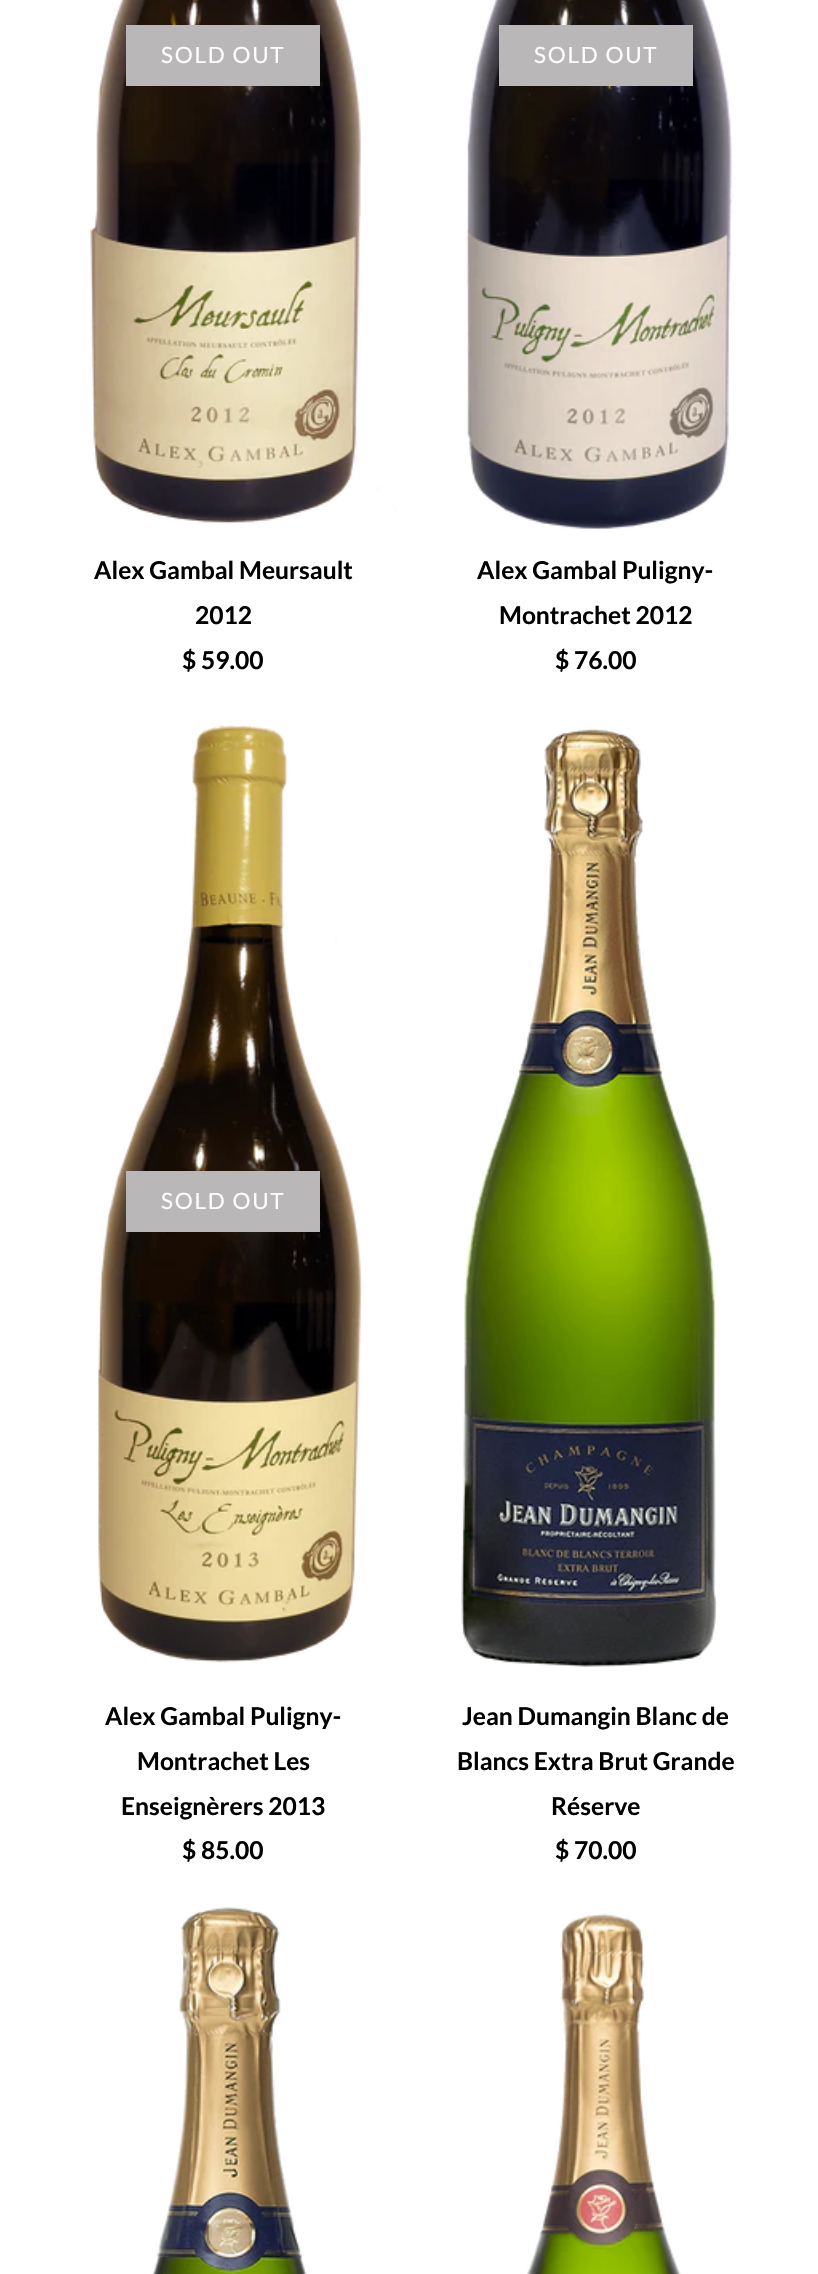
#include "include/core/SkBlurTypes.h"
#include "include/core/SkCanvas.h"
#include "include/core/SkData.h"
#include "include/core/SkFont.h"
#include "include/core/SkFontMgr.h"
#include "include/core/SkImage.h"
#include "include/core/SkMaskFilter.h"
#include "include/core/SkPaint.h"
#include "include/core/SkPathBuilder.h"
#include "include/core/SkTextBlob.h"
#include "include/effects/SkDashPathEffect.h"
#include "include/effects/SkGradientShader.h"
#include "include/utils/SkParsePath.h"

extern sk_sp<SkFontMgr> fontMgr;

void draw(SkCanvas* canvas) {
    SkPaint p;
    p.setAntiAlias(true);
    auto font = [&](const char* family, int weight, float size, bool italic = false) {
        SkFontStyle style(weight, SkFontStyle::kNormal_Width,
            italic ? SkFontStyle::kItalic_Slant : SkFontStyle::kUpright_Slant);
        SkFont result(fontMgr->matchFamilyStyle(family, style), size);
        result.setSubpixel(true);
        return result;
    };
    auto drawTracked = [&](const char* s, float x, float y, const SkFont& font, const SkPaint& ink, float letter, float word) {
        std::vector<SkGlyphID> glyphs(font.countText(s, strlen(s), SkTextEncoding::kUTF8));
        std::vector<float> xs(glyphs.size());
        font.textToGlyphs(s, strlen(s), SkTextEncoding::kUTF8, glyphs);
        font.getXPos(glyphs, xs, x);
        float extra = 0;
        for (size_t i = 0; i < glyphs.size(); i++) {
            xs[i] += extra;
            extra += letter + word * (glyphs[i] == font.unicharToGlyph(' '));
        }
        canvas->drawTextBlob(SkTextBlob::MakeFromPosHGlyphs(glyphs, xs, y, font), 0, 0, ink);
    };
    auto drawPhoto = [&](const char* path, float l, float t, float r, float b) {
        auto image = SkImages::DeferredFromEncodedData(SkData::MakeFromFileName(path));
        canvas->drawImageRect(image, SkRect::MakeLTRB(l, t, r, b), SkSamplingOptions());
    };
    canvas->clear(0xFFFFFFFF);
    drawPhoto("media/1.png", 90, 0, 397, 524);
    p.setColor(0xFFB9B7B7);
    canvas->drawRect(SkRect::MakeLTRB(126, 25, 320, 86), p);
    auto font1 = font("Lato", 400, 22.5f);
    p.setColor(0xFFFFFFFF);
    drawTracked("SOLD OUT", 161, 63, font1, p, 1.75f, 0);
    auto font2 = font("Lato", 700, 24.6f);
    p.setColor(0xFF000000);
    {
        const struct { const char* s; float x, y; } items[] = {
            {"Alex Gambal Meursault", 94, 579},
            {"2012", 195, 624},
            {"$ 59.00", 182, 669},
        };
        for (auto [s, x, y] : items) {
            canvas->drawString(s, x, y, font2, p);
        }
    }
    drawPhoto("media/2.png", 466, 0, 735, 530);
    p.setColor(0xFFB9B7B7);
    canvas->drawRect(SkRect::MakeLTRB(499, 25, 693, 86), p);
    p.setColor(0xFFFFFFFF);
    drawTracked("SOLD OUT", 534, 63, font1, p, 1.75f, 0);
    p.setColor(0xFF000000);
    {
        const struct { const char* s; float x, y; } items[] = {
            {"Alex Gambal Puligny-", 477, 579},
            {"Montrachet 2012", 499, 624},
            {"$ 76.00", 555, 669},
        };
        for (auto [s, x, y] : items) {
            canvas->drawString(s, x, y, font2, p);
        }
    }
    drawPhoto("media/3.png", 98, 719, 363, 1663);
    p.setColor(0xFFB9B7B7);
    canvas->drawRect(SkRect::MakeLTRB(126, 1171, 320, 1232), p);
    p.setColor(0xFFFFFFFF);
    drawTracked("SOLD OUT", 161, 1209, font1, p, 1.75f, 0);
    p.setColor(0xFF000000);
    {
        const struct { const char* s; float x, y; } items[] = {
            {"Alex Gambal Puligny-", 105, 1725},
            {"Montrachet Les", 137, 1770},
            {"Enseignèrers 2013", 121, 1815},
            {"$ 85.00", 182, 1859},
        };
        for (auto [s, x, y] : items) {
            canvas->drawString(s, x, y, font2, p);
        }
    }
    drawPhoto("media/4.png", 461, 728, 717, 1667);
    {
        const struct { const char* s; float x, y; } items[] = {
            {"Jean Dumangin Blanc de", 462, 1725},
            {"Blancs Extra Brut Grande", 457, 1770},
            {"Réserve", 551, 1815},
            {"$ 70.00", 555, 1859},
        };
        for (auto [s, x, y] : items) {
            canvas->drawString(s, x, y, font2, p);
        }
    }
    drawPhoto("media/5.png", 152, 1907, 307, 2274);
    drawPhoto("media/6.png", 527, 1913, 681, 2274);
}
